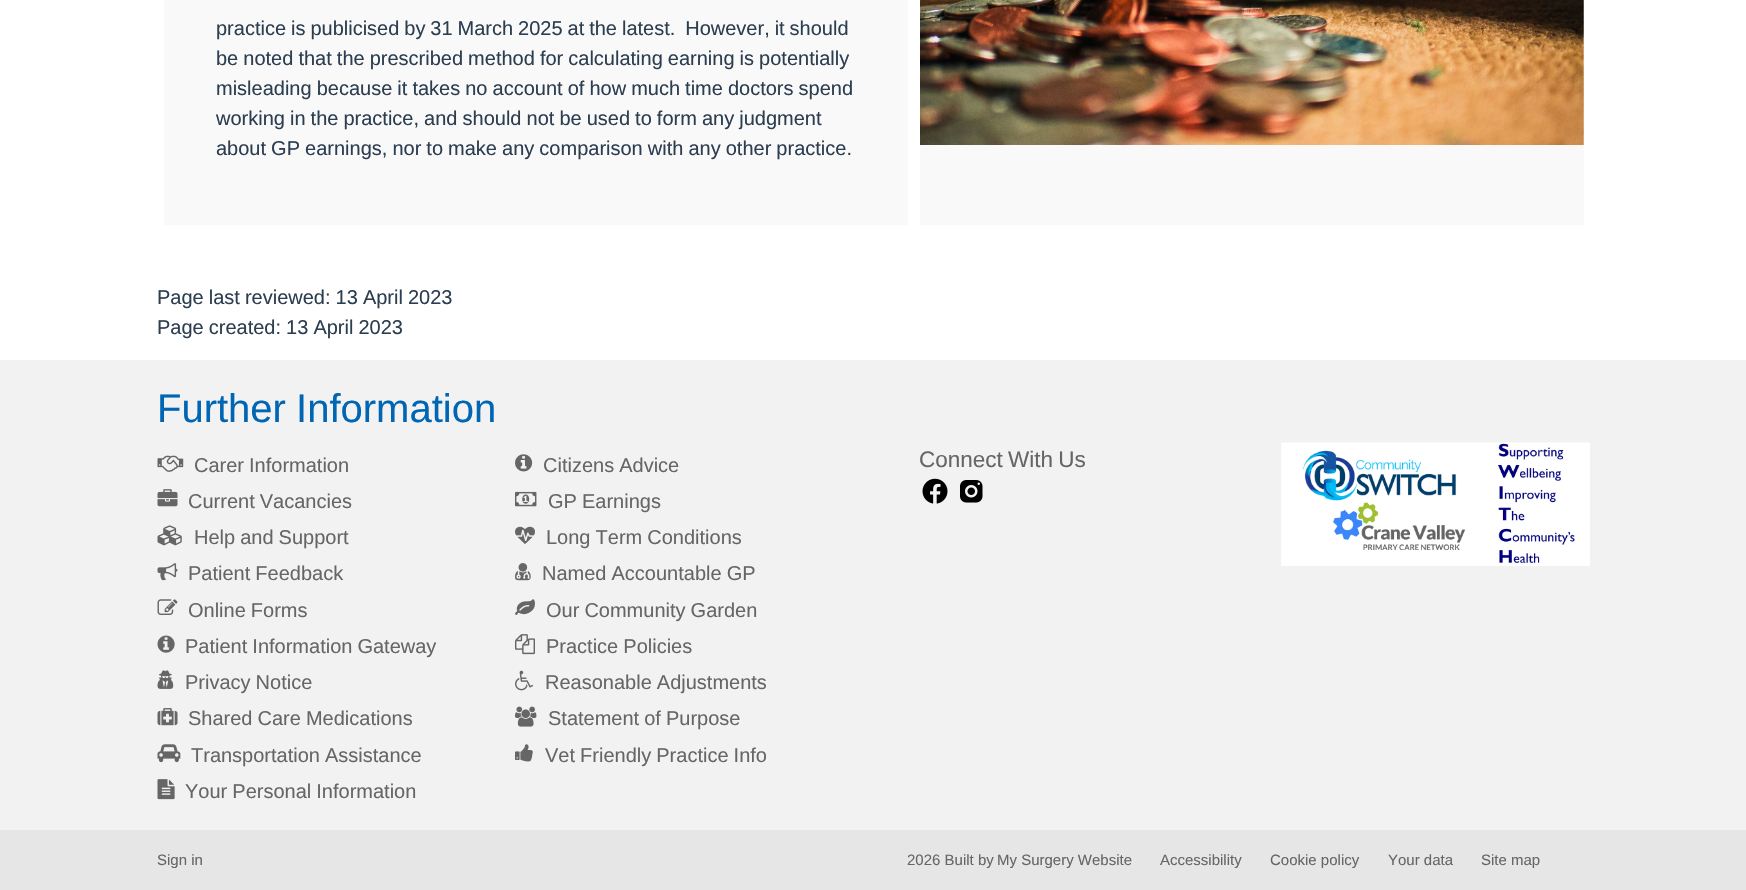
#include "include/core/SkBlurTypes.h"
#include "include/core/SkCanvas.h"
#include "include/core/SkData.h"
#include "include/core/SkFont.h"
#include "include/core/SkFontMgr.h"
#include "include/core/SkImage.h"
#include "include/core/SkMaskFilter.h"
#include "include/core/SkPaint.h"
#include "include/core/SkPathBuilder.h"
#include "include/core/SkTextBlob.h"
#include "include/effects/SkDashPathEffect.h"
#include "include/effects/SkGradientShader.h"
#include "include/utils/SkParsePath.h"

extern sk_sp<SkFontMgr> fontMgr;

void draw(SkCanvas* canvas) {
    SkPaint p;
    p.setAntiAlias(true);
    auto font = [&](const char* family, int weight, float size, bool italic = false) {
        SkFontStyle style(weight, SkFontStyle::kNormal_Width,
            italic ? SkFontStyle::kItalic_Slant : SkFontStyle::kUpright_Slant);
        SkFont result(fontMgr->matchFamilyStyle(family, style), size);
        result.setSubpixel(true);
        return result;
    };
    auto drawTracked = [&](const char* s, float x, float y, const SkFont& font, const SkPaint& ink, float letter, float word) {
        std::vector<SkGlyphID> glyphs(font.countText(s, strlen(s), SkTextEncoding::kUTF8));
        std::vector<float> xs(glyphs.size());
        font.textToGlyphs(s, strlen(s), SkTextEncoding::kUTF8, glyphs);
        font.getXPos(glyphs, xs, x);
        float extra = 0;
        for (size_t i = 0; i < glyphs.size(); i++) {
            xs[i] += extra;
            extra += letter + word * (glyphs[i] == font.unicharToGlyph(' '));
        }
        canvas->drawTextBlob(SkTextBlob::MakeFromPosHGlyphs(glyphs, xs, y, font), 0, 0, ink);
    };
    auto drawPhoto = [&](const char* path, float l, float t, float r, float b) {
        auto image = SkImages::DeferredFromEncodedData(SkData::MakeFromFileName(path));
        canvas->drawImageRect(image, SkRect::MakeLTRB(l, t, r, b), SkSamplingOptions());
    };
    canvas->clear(0xFFFFFFFF);
    p.setColor(0xFFF9F9FA);
    canvas->drawRect(SkRect::MakeLTRB(164, 0, 908, 225), p);
    auto font1 = font("Liberation Sans", 400, 20);
    p.setColor(0xFF2C3E50);
    drawTracked("practice is publicised by 31 March 2025 at the latest.  However, it should", 216, 35, font1, p, 0, -0.6f);
    {
        const struct { const char* s; float x, y; } items[] = {
            {"be noted that the prescribed method for calculating earning is potentially", 216, 65},
            {"misleading because it takes no account of how much time doctors spend", 216, 95},
            {"working in the practice, and should not be used to form any judgment", 216, 125},
            {"about GP earnings, nor to make any comparison with any other practice.", 216, 155},
        };
        for (auto [s, x, y] : items) {
            drawTracked(s, x, y, font1, p, 0, -0.5f);
        }
    }
    drawPhoto("media/1.png", 920, 0, 1584, 145);
    p.setColor(0xFFF9F9FA);
    canvas->drawRect(SkRect::MakeLTRB(920, 145, 1584, 225), p);
    p.setColor(0xFF2C3E50);
    drawTracked("Page last reviewed: 13 April 2023", 157, 304, font1, p, 0, -0.5f);
    drawTracked("Page created: 13 April 2023", 157, 334, font1, p, 0, -0.5f);
    p.setColor(0xFFF2F2F2);
    canvas->drawRect(SkRect::MakeLTRB(0, 360, 1746, 830), p);
    auto font2 = font("Liberation Sans", 400, 40);
    p.setColor(0xFF0066B3);
    drawTracked("Further Information", 157, 422, font2, p, 0, -1);
    drawPhoto("media/2.png", 157, 455, 184, 472);
    p.setColor(0xFF666666);
    drawTracked("Carer Information", 194, 472, font1, p, 0, -0.5f);
    drawPhoto("media/3.png", 515, 454, 533, 472);
    drawTracked("Citizens Advice", 543, 472, font1, p, 0, -0.5f);
    drawPhoto("media/4.png", 157, 489, 178, 507);
    drawTracked("Current Vacancies", 188, 508, font1, p, 0, -0.5f);
    drawPhoto("media/5.png", 515, 491, 537, 507);
    drawTracked("GP Earnings", 548, 508, font1, p, 0, -0.5f);
    drawPhoto("media/6.png", 157, 525, 182, 546);
    drawTracked("Help and Support", 194, 544, font1, p, 0, -0.5f);
    drawPhoto("media/7.png", 515, 526, 535, 544);
    drawTracked("Long Term Conditions", 546, 544, font1, p, 0, -0.5f);
    drawPhoto("media/8.png", 157, 563, 178, 581);
    drawTracked("Patient Feedback", 188, 580, font1, p, 0, -0.5f);
    drawPhoto("media/9.png", 515, 563, 531, 581);
    drawTracked("Named Accountable GP", 542, 580, font1, p, 0, -0.5f);
    drawPhoto("media/10.png", 157, 599, 178, 615);
    drawTracked("Online Forms", 188, 617, font1, p, 0, -0.5f);
    drawPhoto("media/11.png", 515, 599, 535, 615);
    drawTracked("Our Community Garden", 546, 617, font1, p, 0, -0.5f);
    drawPhoto("media/12.png", 157, 635, 175, 653);
    drawTracked("Patient Information Gateway", 185, 653, font1, p, 0, -0.5f);
    drawPhoto("media/13.png", 515, 634, 535, 655);
    drawTracked("Practice Policies", 546, 653, font1, p, 0, -0.5f);
    drawPhoto("media/14.png", 157, 670, 174, 689);
    drawTracked("Privacy Notice", 185, 689, font1, p, 0, -0.5f);
    drawPhoto("media/15.png", 515, 670, 534, 691);
    drawTracked("Reasonable Adjustments", 545, 689, font1, p, 0, -0.5f);
    drawPhoto("media/16.png", 157, 708, 178, 726);
    drawTracked("Shared Care Medications", 188, 725, font1, p, 0, -0.5f);
    drawPhoto("media/17.png", 515, 706, 537, 727);
    drawTracked("Statement of Purpose", 548, 725, font1, p, 0, -0.5f);
    drawPhoto("media/18.png", 157, 744, 181, 763);
    drawTracked("Transportation Assistance", 191, 762, font1, p, 0, -0.5f);
    drawPhoto("media/19.png", 515, 744, 533, 762);
    drawTracked("Vet Friendly Practice Info", 545, 762, font1, p, 0, -0.5f);
    drawPhoto("media/20.png", 157, 779, 175, 800);
    drawTracked("Your Personal Information", 185, 798, font1, p, 0, -0.5f);
    auto font3 = font("Liberation Sans", 400, 22.5f);
    drawTracked("Connect With Us", 919, 467, font3, p, 0, -1);
    drawPhoto("media/21.png", 922, 478, 948, 504);
    drawPhoto("media/22.png", 960, 480, 983, 503);
    drawPhoto("media/23.png", 1281, 442, 1590, 566);
    p.setColor(0xFFE6E6E6);
    canvas->drawRect(SkRect::MakeLTRB(0, 830, 1746, 890), p);
    auto font4 = font("Liberation Sans", 400, 15);
    p.setColor(0xFF666666);
    {
        const struct { const char* s; float x, y; } items[] = {
            {"Sign in", 157, 865},
            {"2026 Built by", 907, 865},
            {"My Surgery Website", 997, 865},
            {"Accessibility", 1160, 865},
            {"Cookie policy", 1270, 865},
            {"Your data", 1388, 865},
            {"Site map", 1481, 865},
        };
        for (auto [s, x, y] : items) {
            canvas->drawString(s, x, y, font4, p);
        }
    }
}
